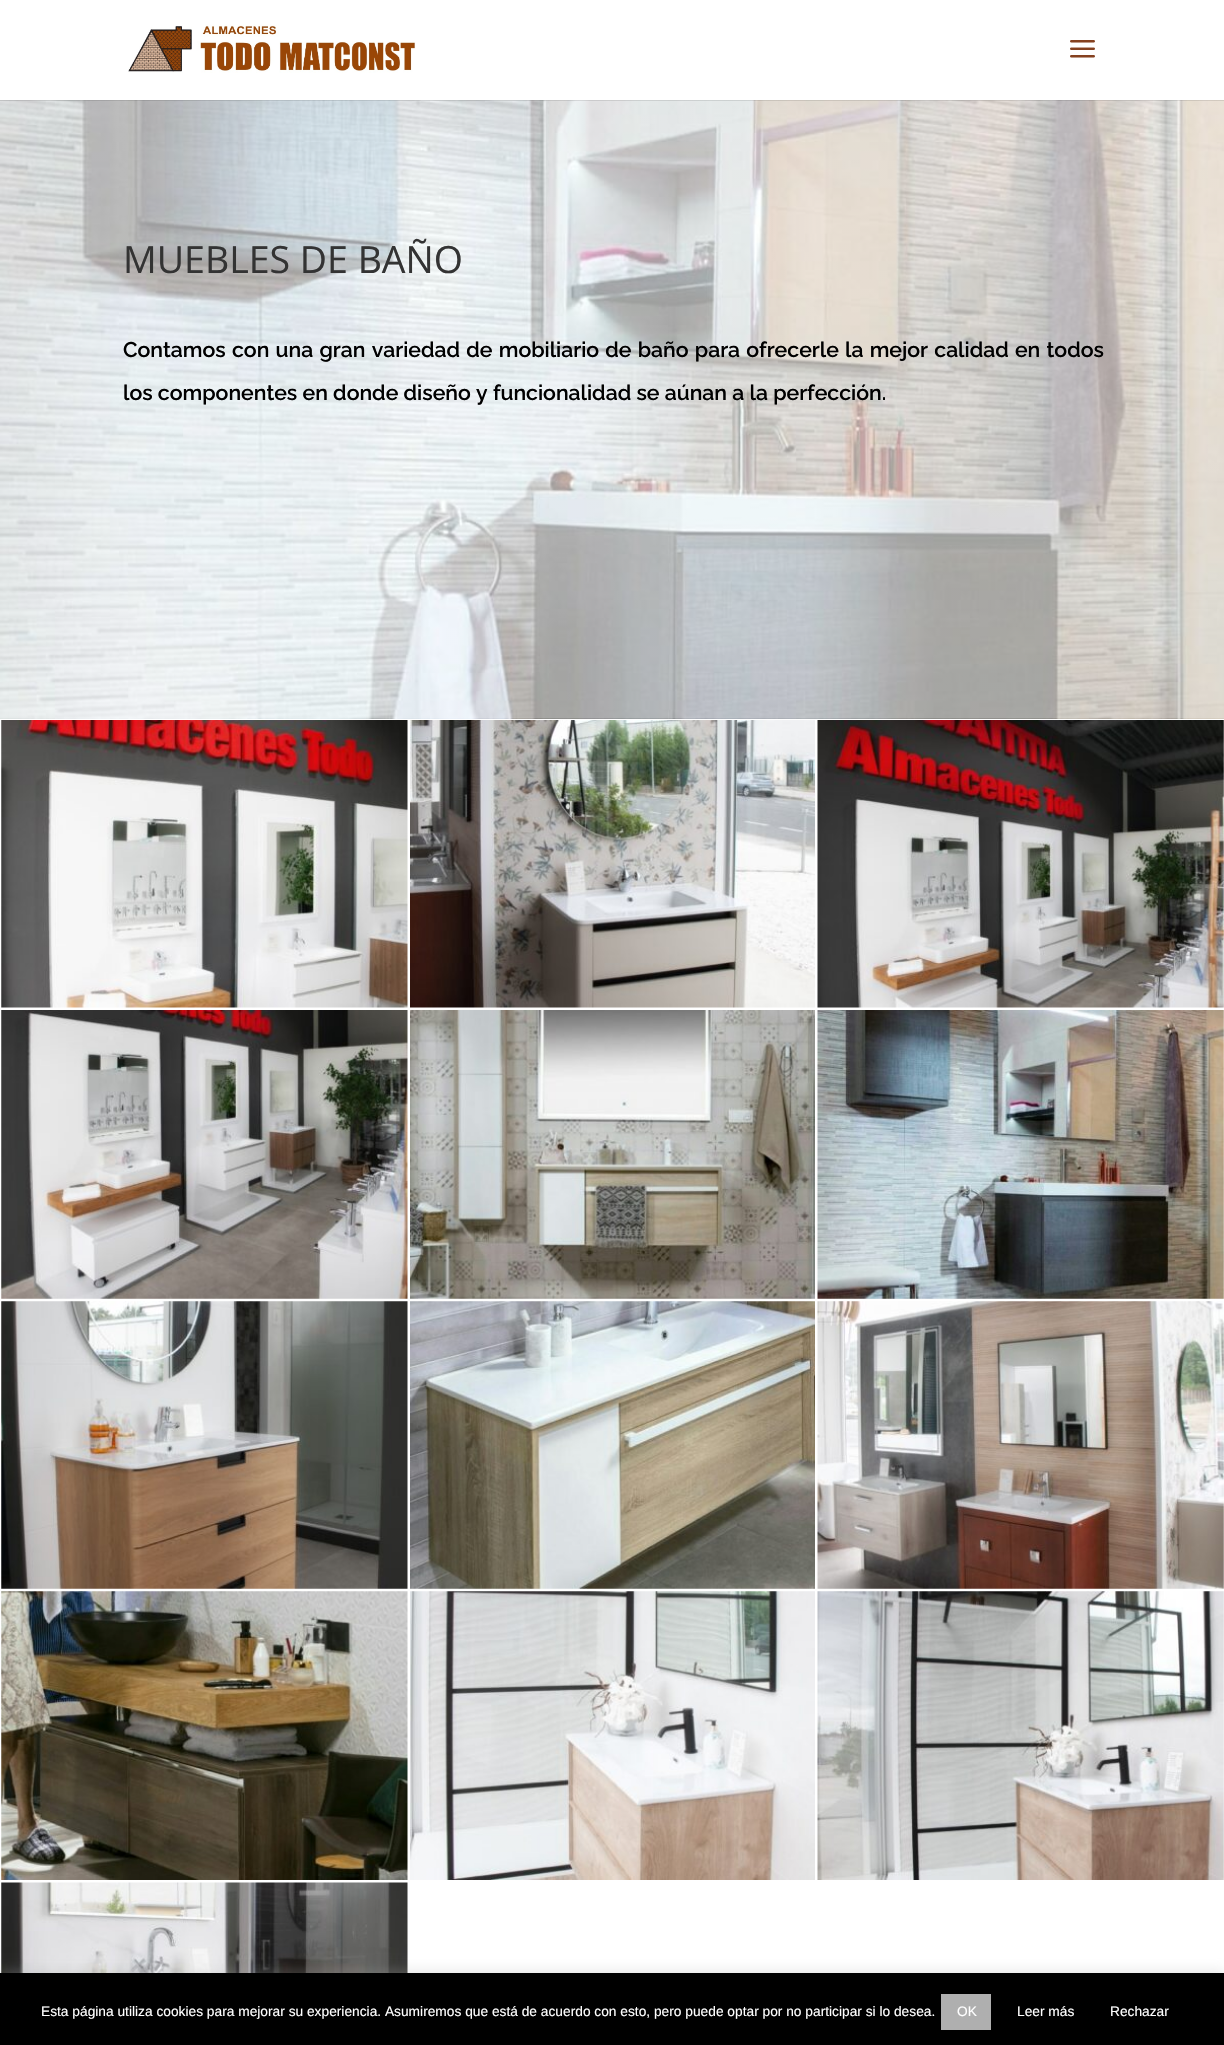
#include "include/core/SkBlurTypes.h"
#include "include/core/SkCanvas.h"
#include "include/core/SkData.h"
#include "include/core/SkFont.h"
#include "include/core/SkFontMgr.h"
#include "include/core/SkImage.h"
#include "include/core/SkMaskFilter.h"
#include "include/core/SkPaint.h"
#include "include/core/SkPathBuilder.h"
#include "include/core/SkTextBlob.h"
#include "include/effects/SkDashPathEffect.h"
#include "include/effects/SkGradientShader.h"
#include "include/utils/SkParsePath.h"

extern sk_sp<SkFontMgr> fontMgr;

void draw(SkCanvas* canvas) {
    SkPaint p;
    p.setAntiAlias(true);
    auto font = [&](const char* family, int weight, float size, bool italic = false) {
        SkFontStyle style(weight, SkFontStyle::kNormal_Width,
            italic ? SkFontStyle::kItalic_Slant : SkFontStyle::kUpright_Slant);
        SkFont result(fontMgr->matchFamilyStyle(family, style), size);
        result.setSubpixel(true);
        return result;
    };
    auto drawTracked = [&](const char* s, float x, float y, const SkFont& font, const SkPaint& ink, float letter, float word) {
        std::vector<SkGlyphID> glyphs(font.countText(s, strlen(s), SkTextEncoding::kUTF8));
        std::vector<float> xs(glyphs.size());
        font.textToGlyphs(s, strlen(s), SkTextEncoding::kUTF8, glyphs);
        font.getXPos(glyphs, xs, x);
        float extra = 0;
        for (size_t i = 0; i < glyphs.size(); i++) {
            xs[i] += extra;
            extra += letter + word * (glyphs[i] == font.unicharToGlyph(' '));
        }
        canvas->drawTextBlob(SkTextBlob::MakeFromPosHGlyphs(glyphs, xs, y, font), 0, 0, ink);
    };
    auto drawPhoto = [&](const char* path, float l, float t, float r, float b) {
        auto image = SkImages::DeferredFromEncodedData(SkData::MakeFromFileName(path));
        canvas->drawImageRect(image, SkRect::MakeLTRB(l, t, r, b), SkSamplingOptions());
    };
    canvas->clear(0xFFFFFFFF);
    drawPhoto("media/3.png", 0, 100, 1224, 719);
    p.setColor(0x1A000000);
    canvas->drawRect(SkRect::MakeLTRB(0, 100, 1224, 101), p);
    drawPhoto("media/1.png", 128, 24, 416, 73);
    drawPhoto("media/2.png", 1070, 40, 1095, 58);
    auto font1 = font("Open Sans", 400, 37.5f);
    p.setColor(0xFF333333);
    canvas->drawString("MUEBLES DE BAÑO", 123, 273, font1, p);
    auto font2 = font("Raleway", 600, 21.25f);
    p.setColor(0xFF000000);
    drawTracked("Contamos con una gran variedad de mobiliario de baño para ofrecerle la mejor calidad en todos", 123, 357, font2, p, 0, 1);
    canvas->drawString("los componentes en donde diseño y funcionalidad se aúnan a la perfección.", 123, 400, font2, p);
    drawPhoto("media/4.png", 1, 720, 408, 1008);
    drawPhoto("media/5.png", 410, 720, 815, 1008);
    drawPhoto("media/6.png", 817, 720, 1224, 1008);
    drawPhoto("media/7.png", 1, 1010, 408, 1299);
    drawPhoto("media/8.png", 410, 1010, 815, 1299);
    drawPhoto("media/9.png", 817, 1010, 1224, 1299);
    drawPhoto("media/10.png", 1, 1301, 408, 1589);
    drawPhoto("media/11.png", 410, 1301, 815, 1589);
    drawPhoto("media/12.png", 817, 1301, 1224, 1589);
    drawPhoto("media/13.png", 1, 1591, 408, 1880);
    drawPhoto("media/14.png", 410, 1591, 815, 1880);
    drawPhoto("media/15.png", 817, 1591, 1224, 1880);
    drawPhoto("media/16.png", 1, 1882, 408, 1973);
    p.setColor(0x4DACABAB);
    p.setMaskFilter(SkMaskFilter::MakeBlur(kNormal_SkBlurStyle, 6));
    canvas->drawRect(SkRect::MakeLTRB(0, 1971, 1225, 2044), p);
    p.setMaskFilter(nullptr);
    p.setColor(0xFF000000);
    canvas->drawRect(SkRect::MakeLTRB(0, 1973, 1224, 2045), p);
    auto font3 = font("Liberation Sans", 400, 13.75f);
    p.setColor(0xFFFFFFFF);
    canvas->drawString("Esta página utiliza cookies para mejorar su experiencia. Asumiremos que está de acuerdo con esto, pero puede optar por no participar si lo desea.", 41, 2016, font3, p);
    p.setColor(0xFFAFAFAF);
    canvas->drawRect(SkRect::MakeLTRB(941, 1994, 991, 2030), p);
    p.setColor(0xFFFFFFFF);
    {
        const struct { const char* s; float x, y; } items[] = {
            {"OK", 957, 2016},
            {"Leer más", 1017, 2016},
            {"Rechazar", 1110, 2016},
        };
        for (auto [s, x, y] : items) {
            canvas->drawString(s, x, y, font3, p);
        }
    }
}
